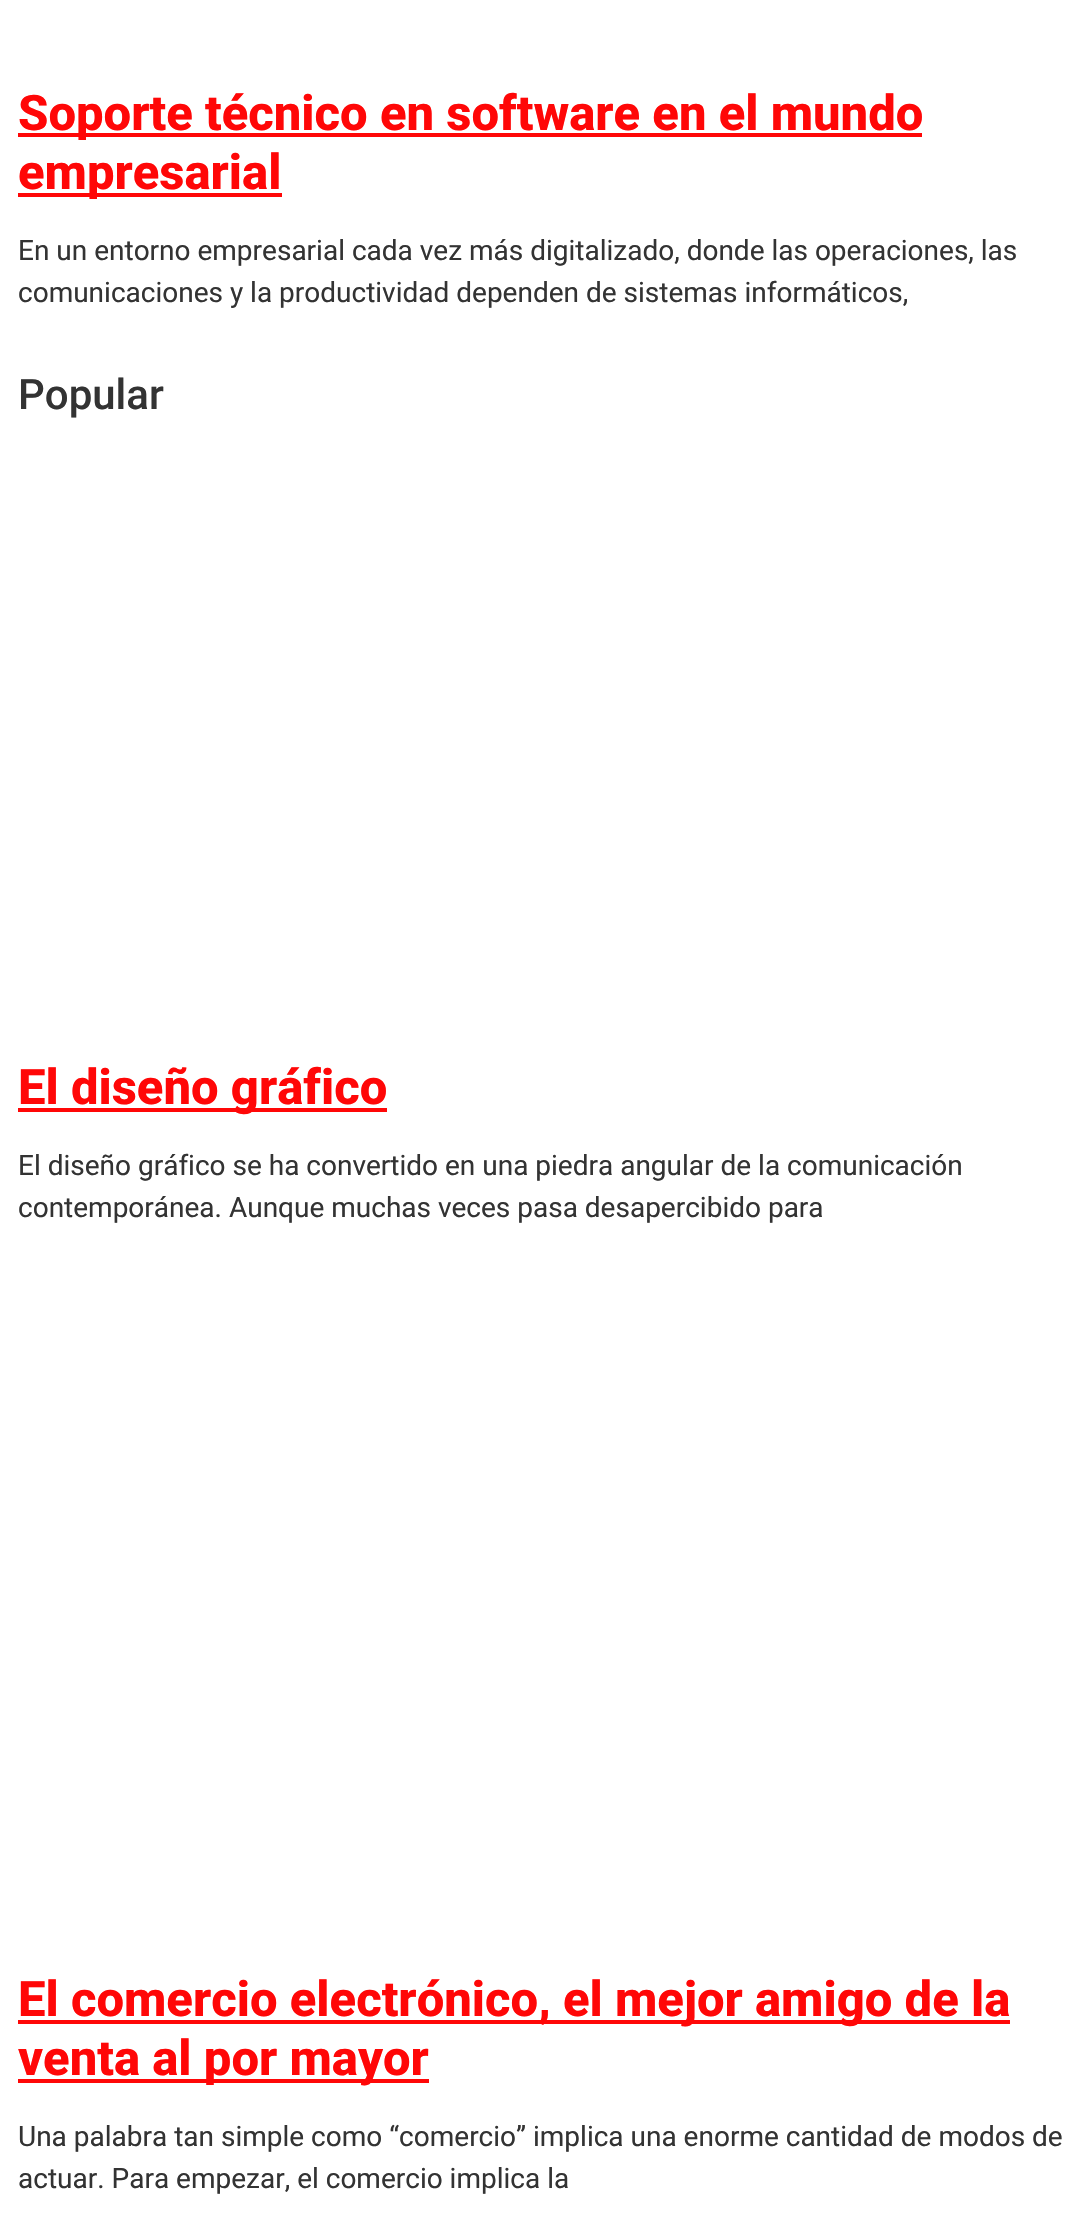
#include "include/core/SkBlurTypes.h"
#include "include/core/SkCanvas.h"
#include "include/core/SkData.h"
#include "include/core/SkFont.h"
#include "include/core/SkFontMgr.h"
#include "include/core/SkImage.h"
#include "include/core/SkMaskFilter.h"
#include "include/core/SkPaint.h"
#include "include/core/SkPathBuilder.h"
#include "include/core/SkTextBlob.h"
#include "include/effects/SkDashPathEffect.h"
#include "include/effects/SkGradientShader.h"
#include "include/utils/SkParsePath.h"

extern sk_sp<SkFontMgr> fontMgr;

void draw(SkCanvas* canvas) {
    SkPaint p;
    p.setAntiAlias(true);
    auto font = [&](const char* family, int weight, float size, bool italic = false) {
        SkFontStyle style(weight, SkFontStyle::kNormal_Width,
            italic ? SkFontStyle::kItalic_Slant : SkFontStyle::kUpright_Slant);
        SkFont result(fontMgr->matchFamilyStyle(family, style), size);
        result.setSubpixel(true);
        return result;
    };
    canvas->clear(0xFFFFFFFF);
    p.setColor(0xFFFF0707);
    canvas->drawRect(SkRect::MakeLTRB(18, 133, 922, 137), p);
    auto font1 = font("Roboto", 800, 49);
    canvas->drawString("Soporte técnico en software en el mundo", 18, 130, font1, p);
    canvas->drawRect(SkRect::MakeLTRB(18, 193, 282, 197), p);
    canvas->drawString("empresarial", 18, 189, font1, p);
    auto font2 = font("Roboto", 400, 28);
    p.setColor(0xFF333333);
    canvas->drawString("En un entorno empresarial cada vez más digitalizado, donde las operaciones, las", 18, 260, font2, p);
    canvas->drawString("comunicaciones y la productividad dependen de sistemas informáticos,", 18, 302, font2, p);
    auto font3 = font("Roboto", 500, 42);
    canvas->drawString("Popular", 18, 409, font3, p);
    p.setColor(0xFFFF0707);
    canvas->drawRect(SkRect::MakeLTRB(18, 1108, 387, 1112), p);
    canvas->drawString("El diseño gráfico", 18, 1104, font1, p);
    p.setColor(0xFF333333);
    canvas->drawString("El diseño gráfico se ha convertido en una piedra angular de la comunicación", 18, 1175, font2, p);
    canvas->drawString("contemporánea. Aunque muchas veces pasa desapercibido para", 18, 1217, font2, p);
    p.setColor(0xFFFF0707);
    canvas->drawRect(SkRect::MakeLTRB(18, 2020, 1010, 2024), p);
    canvas->drawString("El comercio electrónico, el mejor amigo de la", 18, 2016, font1, p);
    canvas->drawRect(SkRect::MakeLTRB(18, 2079, 429, 2083), p);
    canvas->drawString("venta al por mayor", 18, 2075, font1, p);
    p.setColor(0xFF333333);
    canvas->drawString("Una palabra tan simple como “comercio” implica una enorme cantidad de modos de", 18, 2146, font2, p);
    canvas->drawString("actuar. Para empezar, el comercio implica la", 18, 2188, font2, p);
}
